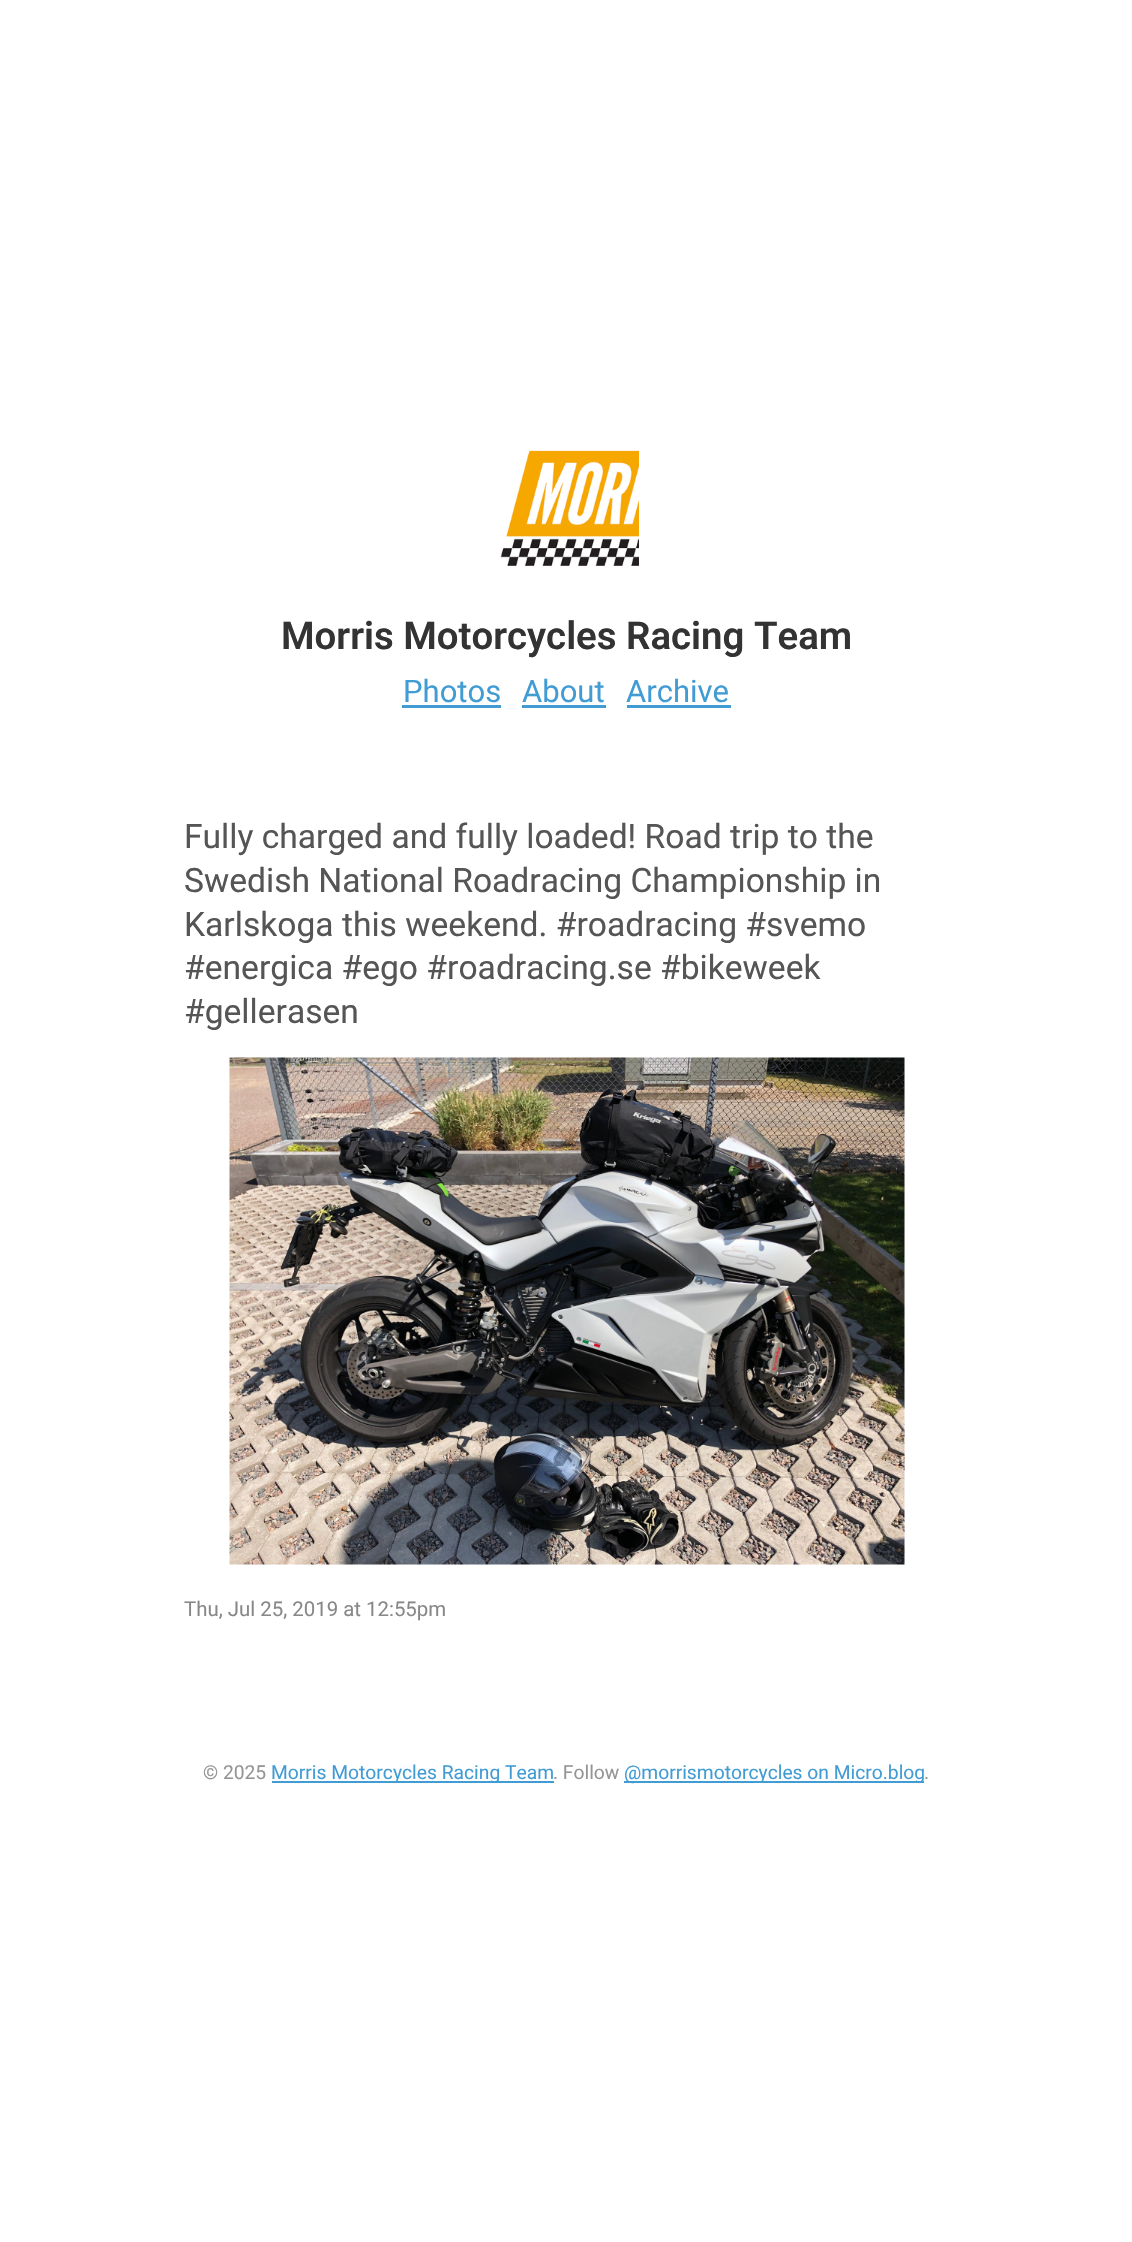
#include "include/core/SkBlurTypes.h"
#include "include/core/SkCanvas.h"
#include "include/core/SkData.h"
#include "include/core/SkFont.h"
#include "include/core/SkFontMgr.h"
#include "include/core/SkImage.h"
#include "include/core/SkMaskFilter.h"
#include "include/core/SkPaint.h"
#include "include/core/SkPathBuilder.h"
#include "include/core/SkTextBlob.h"
#include "include/effects/SkDashPathEffect.h"
#include "include/effects/SkGradientShader.h"
#include "include/utils/SkParsePath.h"

extern sk_sp<SkFontMgr> fontMgr;

void draw(SkCanvas* canvas) {
    SkPaint p;
    p.setAntiAlias(true);
    auto font = [&](const char* family, int weight, float size, bool italic = false) {
        SkFontStyle style(weight, SkFontStyle::kNormal_Width,
            italic ? SkFontStyle::kItalic_Slant : SkFontStyle::kUpright_Slant);
        SkFont result(fontMgr->matchFamilyStyle(family, style), size);
        result.setSubpixel(true);
        return result;
    };
    auto drawPhoto = [&](const char* path, float l, float t, float r, float b) {
        auto image = SkImages::DeferredFromEncodedData(SkData::MakeFromFileName(path));
        canvas->drawImageRect(image, SkRect::MakeLTRB(l, t, r, b), SkSamplingOptions());
    };
    canvas->clear(0xFFFFFFFF);
    drawPhoto("media/1.png", 500, 450, 639, 566);
    auto font1 = font("Roboto", 600, 38.4f);
    p.setColor(0xFF333333);
    canvas->drawString("Morris Motorcycles Racing Team", 281, 649, font1, p);
    auto font2 = font("Roboto", 400, 31);
    p.setColor(0xFF429CD4);
    canvas->drawString("Photos", 403, 702, font2, p);
    canvas->drawRect(SkRect::MakeLTRB(402, 705, 501, 708), p);
    canvas->drawString("About", 522, 702, font2, p);
    canvas->drawRect(SkRect::MakeLTRB(522, 705, 606, 708), p);
    canvas->drawString("Archive", 626, 702, font2, p);
    canvas->drawRect(SkRect::MakeLTRB(627, 705, 731, 708), p);
    auto font3 = font("Roboto", 400, 33.6f);
    p.setColor(0xFF555555);
    {
        const struct { const char* s; float x, y; } items[] = {
            {"Fully charged and fully loaded! Road trip to the", 184, 848},
            {"Swedish National Roadracing Championship in", 184, 892},
            {"Karlskoga this weekend. #roadracing #svemo", 184, 936},
            {"#energica #ego #roadracing.se #bikeweek", 184, 979},
            {"#gellerasen", 184, 1023},
        };
        for (auto [s, x, y] : items) {
            canvas->drawString(s, x, y, font3, p);
        }
    }
    drawPhoto("media/2.png", 229, 1057, 905, 1565);
    auto font4 = font("Roboto", 400, 20.4f);
    p.setColor(0xFF888888);
    canvas->drawString("Thu, Jul 25, 2019 at 12:55pm", 184, 1616, font4, p);
    auto font5 = font("Roboto", 400, 19.25f);
    p.setColor(0xFF959595);
    canvas->drawString("© 2025", 203, 1779, font5, p);
    p.setColor(0xFF429CD4);
    canvas->drawRect(SkRect::MakeLTRB(272, 1781, 554, 1783), p);
    canvas->drawString("Morris Motorcycles Racing Team", 271, 1779, font5, p);
    p.setColor(0xFF959595);
    canvas->drawString(". Follow", 553, 1779, font5, p);
    p.setColor(0xFF429CD4);
    canvas->drawRect(SkRect::MakeLTRB(624, 1781, 924, 1783), p);
    canvas->drawString("@morrismotorcycles on Micro.blog", 624, 1779, font5, p);
    p.setColor(0xFF959595);
    canvas->drawString(".", 924, 1779, font5, p);
}
